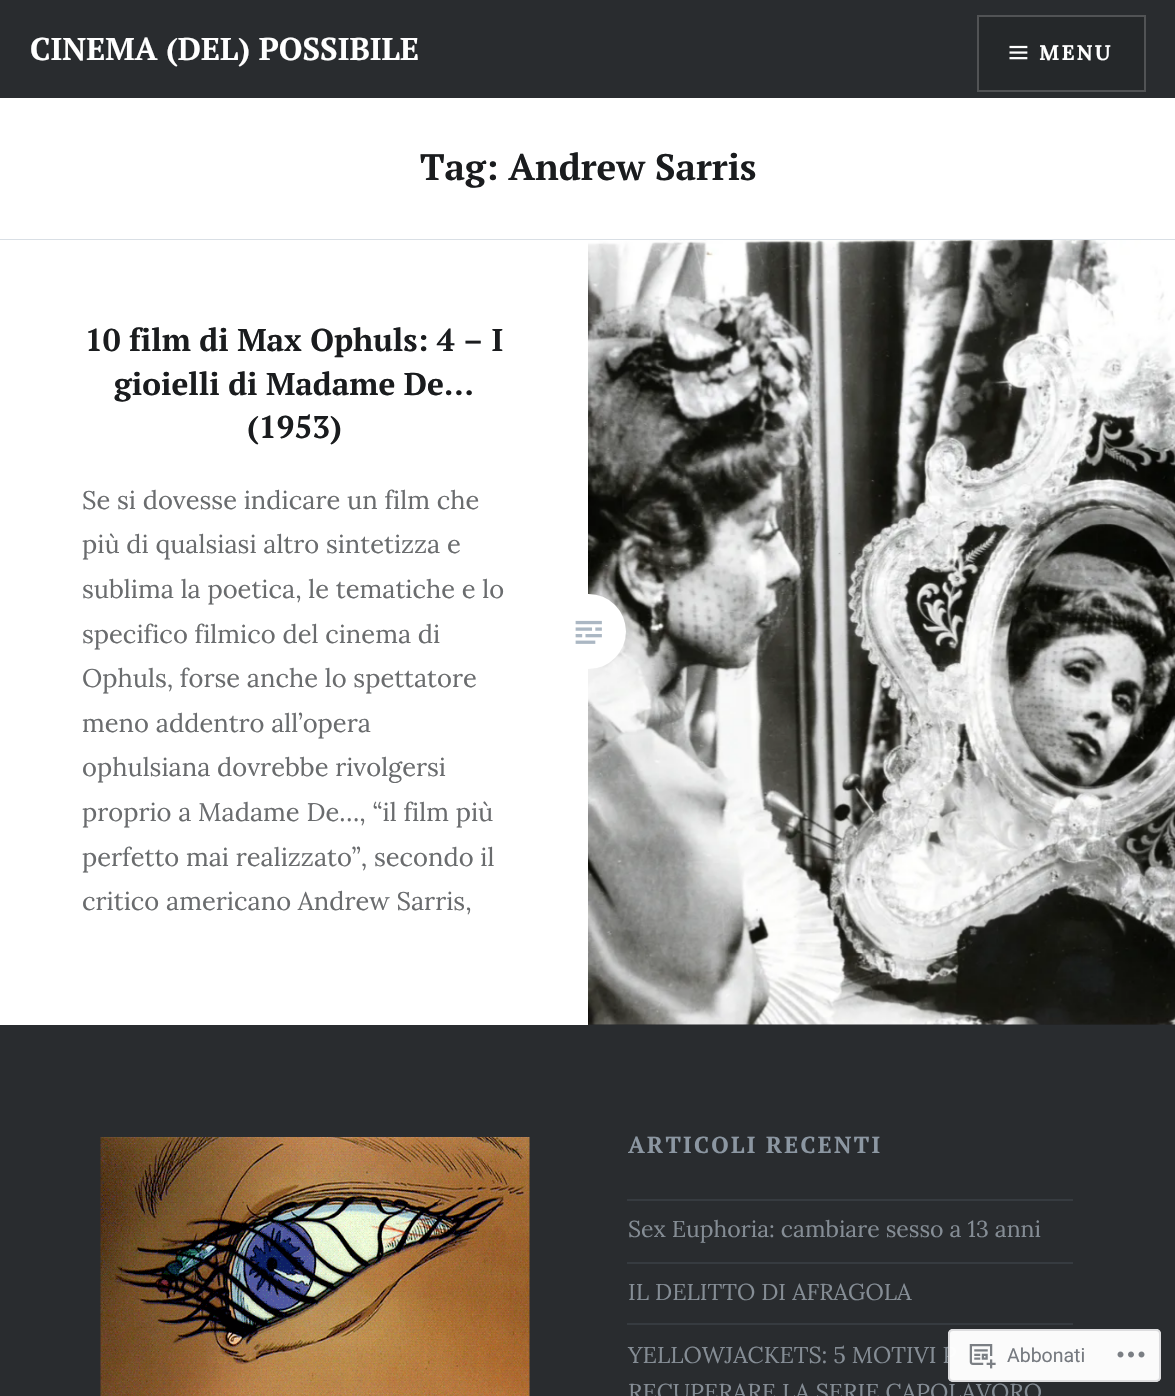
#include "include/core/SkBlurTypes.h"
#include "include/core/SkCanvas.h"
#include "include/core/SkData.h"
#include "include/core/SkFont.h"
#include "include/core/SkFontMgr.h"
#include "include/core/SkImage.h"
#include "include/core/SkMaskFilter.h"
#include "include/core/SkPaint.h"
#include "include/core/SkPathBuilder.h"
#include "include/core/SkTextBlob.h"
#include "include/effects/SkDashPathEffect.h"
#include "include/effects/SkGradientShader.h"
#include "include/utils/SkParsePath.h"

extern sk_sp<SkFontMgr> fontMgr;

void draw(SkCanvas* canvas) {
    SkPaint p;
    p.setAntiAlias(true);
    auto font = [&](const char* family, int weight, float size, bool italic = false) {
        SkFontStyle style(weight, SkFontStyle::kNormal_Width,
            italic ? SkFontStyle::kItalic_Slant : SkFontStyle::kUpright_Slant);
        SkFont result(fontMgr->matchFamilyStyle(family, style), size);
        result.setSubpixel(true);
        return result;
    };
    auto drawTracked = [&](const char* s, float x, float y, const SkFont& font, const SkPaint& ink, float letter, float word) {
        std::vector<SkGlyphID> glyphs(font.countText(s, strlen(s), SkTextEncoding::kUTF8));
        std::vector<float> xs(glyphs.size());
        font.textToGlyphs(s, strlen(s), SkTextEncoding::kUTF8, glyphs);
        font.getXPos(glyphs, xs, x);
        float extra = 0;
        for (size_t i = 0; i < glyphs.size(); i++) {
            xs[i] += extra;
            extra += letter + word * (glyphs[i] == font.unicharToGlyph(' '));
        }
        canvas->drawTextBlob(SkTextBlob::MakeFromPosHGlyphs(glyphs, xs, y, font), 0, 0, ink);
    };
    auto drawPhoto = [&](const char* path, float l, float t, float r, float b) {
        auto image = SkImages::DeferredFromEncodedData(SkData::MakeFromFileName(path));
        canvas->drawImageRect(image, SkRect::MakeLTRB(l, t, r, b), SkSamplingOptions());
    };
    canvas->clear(0xFFFFFFFF);
    p.setColor(0xFF292C2F);
    canvas->drawRect(SkRect::MakeLTRB(0, 0, 1175, 98), p);
    auto font1 = font("PT Serif", 700, 31.5f);
    p.setColor(0xFFFFFFFF);
    canvas->drawString("CINEMA (DEL) POSSIBILE", 30, 60, font1, p);
    p.setColor(0xFF25282A);
    canvas->drawRect(SkRect::MakeLTRB(978, 16, 1145, 91), p);
    p.setStyle(SkPaint::kStroke_Style);
    p.setStrokeWidth(2);
    p.setColor(0xFF515355);
    canvas->drawRect(SkRect::MakeLTRB(978, 16, 1145, 91), p);
    drawPhoto("media/1.png", 1009, 45, 1028, 60);
    auto font2 = font("Lora", 700, 21);
    p.setStyle(SkPaint::kFill_Style);
    p.setColor(0xFFFFFFFF);
    drawTracked("MENU", 1039, 60, font2, p, 2, 0);
    p.setColor(0xFFD9DFE5);
    canvas->drawRect(SkRect::MakeLTRB(0, 239, 1175, 240), p);
    auto font3 = font("PT Serif", 700, 36.75f);
    p.setColor(0xFF1A1C1E);
    canvas->drawString("Tag: Andrew Sarris", 420, 180, font3, p);
    {
        const struct { const char* s; float x, y; } items[] = {
            {"10 film di Max Ophuls: 4 – I", 85, 351},
            {"gioielli di Madame De…", 114, 395},
            {"(1953)", 247, 438},
        };
        for (auto [s, x, y] : items) {
            canvas->drawString(s, x, y, font1, p);
        }
    }
    auto font4 = font("Lora", 400, 25.5f);
    p.setColor(0xFF6A6C6E);
    {
        const struct { const char* s; float x, y; } items[] = {
            {"Se si dovesse indicare un film che", 82, 509},
            {"più di qualsiasi altro sintetizza e", 82, 553},
            {"sublima la poetica, le tematiche e lo", 82, 598},
            {"specifico filmico del cinema di", 82, 643},
            {"Ophuls, forse anche lo spettatore", 82, 687},
            {"meno addentro all’opera", 82, 732},
            {"ophulsiana dovrebbe rivolgersi", 82, 776},
            {"proprio a Madame De…, “il film più", 82, 821},
            {"perfetto mai realizzato”, secondo il", 82, 866},
            {"critico americano Andrew Sarris,", 82, 910},
        };
        for (auto [s, x, y] : items) {
            canvas->drawString(s, x, y, font4, p);
        }
    }
    p.setColor(0xFF242629);
    canvas->drawRect(SkRect::MakeLTRB(588, 1024, 1175, 1025), p);
    drawPhoto("media/3.png", 588, 240, 1175, 1025);
    p.setColor(0xFFFFFFFF);
    canvas->drawCircle(588.5f, 631.5f, 37.5f, p);
    drawPhoto("media/2.png", 575, 620, 602, 644);
    p.setColor(0xFF292C2F);
    canvas->drawRect(SkRect::MakeLTRB(0, 1025, 1175, 1396), p);
    drawPhoto("media/4.png", 100, 1137, 530, 1396);
    auto font5 = font("PT Serif", 700, 23.1f);
    p.setColor(0xFF8C97A2);
    drawTracked("ARTICOLI RECENTI", 628, 1153, font5, p, 2.25f, 0);
    p.setColor(0xFF363B40);
    canvas->drawRect(SkRect::MakeLTRB(627, 1199, 1073, 1201), p);
    canvas->drawRect(SkRect::MakeLTRB(627, 1262, 1073, 1264), p);
    auto font6 = font("Lora", 400, 23);
    p.setColor(0xFF858D95);
    canvas->drawString("Sex Euphoria: cambiare sesso a 13 anni", 628, 1237, font6, p);
    p.setColor(0xFF363B40);
    canvas->drawRect(SkRect::MakeLTRB(627, 1323, 1073, 1325), p);
    p.setColor(0xFF858D95);
    {
        const struct { const char* s; float x, y; } items[] = {
            {"IL DELITTO DI AFRAGOLA", 628, 1300},
            {"YELLOWJACKETS: 5 MOTIVI P", 628, 1363},
            {"RECUPERARE LA SERIE CAPOLAVORO", 628, 1400},
        };
        for (auto [s, x, y] : items) {
            canvas->drawString(s, x, y, font6, p);
        }
    }
    p.setColor(0xFAFFFFFF);
    canvas->drawRoundRect(SkRect::MakeLTRB(948, 1329, 1161, 1382), 5, 5, p);
    p.setStyle(SkPaint::kStroke_Style);
    p.setColor(0xFADCDCDE);
    canvas->drawRoundRect(SkRect::MakeLTRB(949, 1330, 1160, 1381), 4, 4, p);
    drawPhoto("media/5.png", 969, 1344, 996, 1369);
    auto font7 = font("Roboto", 400, 19.5f);
    p.setStyle(SkPaint::kFill_Style);
    p.setColor(0xFF767A80);
    canvas->drawString("Abbonati", 1007, 1362, font7, p);
    drawPhoto("media/6.png", 1117, 1351, 1145, 1358);
}
